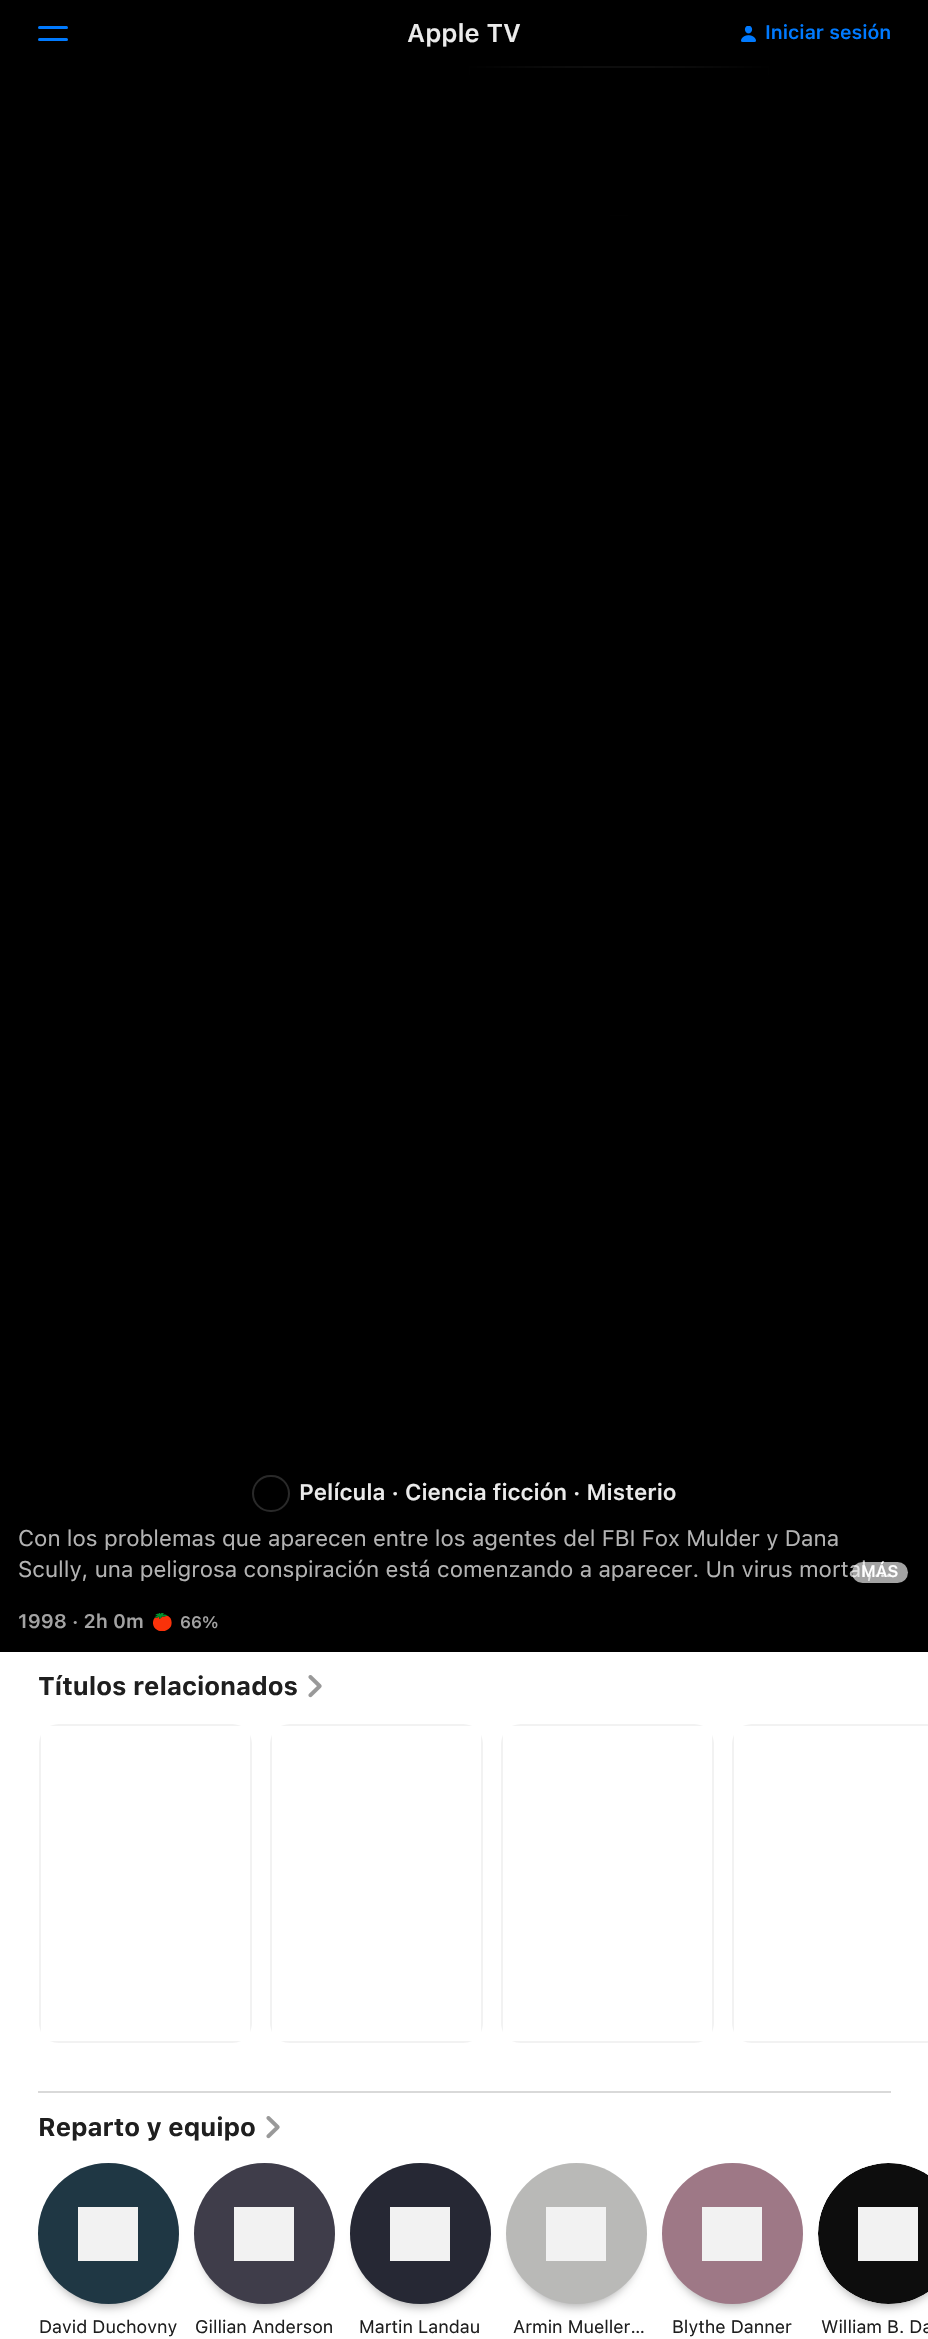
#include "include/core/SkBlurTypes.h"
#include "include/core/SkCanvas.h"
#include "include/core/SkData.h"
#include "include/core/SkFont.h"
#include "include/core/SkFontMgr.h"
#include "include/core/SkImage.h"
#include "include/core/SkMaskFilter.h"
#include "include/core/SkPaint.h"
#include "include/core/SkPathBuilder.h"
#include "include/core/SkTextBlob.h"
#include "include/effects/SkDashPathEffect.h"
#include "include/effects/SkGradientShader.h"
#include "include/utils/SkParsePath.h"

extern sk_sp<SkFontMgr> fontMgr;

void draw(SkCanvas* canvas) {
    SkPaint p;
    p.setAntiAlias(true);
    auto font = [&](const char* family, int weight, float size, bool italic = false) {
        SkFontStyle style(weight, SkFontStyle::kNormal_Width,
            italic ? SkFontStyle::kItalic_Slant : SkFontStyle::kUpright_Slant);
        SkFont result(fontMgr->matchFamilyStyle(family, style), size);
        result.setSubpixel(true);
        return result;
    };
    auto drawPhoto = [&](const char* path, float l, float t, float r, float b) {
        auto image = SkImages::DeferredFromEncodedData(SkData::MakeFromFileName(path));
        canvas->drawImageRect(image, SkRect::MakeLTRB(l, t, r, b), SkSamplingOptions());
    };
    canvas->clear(0xFFFFFFFF);
    p.setColor(0xFF000000);
    canvas->drawRect(SkRect::MakeLTRB(0, 0, 928, 66), p);
    p.setColor(0xFF007AFF);
    canvas->drawRoundRect(SkRect::MakeLTRB(38, 26, 68, 29), 1.5f, 1.5f, p);
    canvas->drawRoundRect(SkRect::MakeLTRB(38, 38, 68, 41), 1.5f, 1.5f, p);
    auto font1 = font("SF", 600, 25.5f);
    p.setColor(0xFFEBEBEB);
    canvas->drawString("Apple TV", 407, 42, font1, p);
    drawPhoto("media/1.png", 741, 26, 756, 42);
    auto font2 = font("SF", 600, 19.5f);
    p.setColor(0xFF007AFF);
    canvas->drawString("Iniciar sesión", 765, 39, font2, p);
    p.setColor(0xFF000000);
    canvas->drawRect(SkRect::MakeLTRB(470, 68, 768, 215), p);
    canvas->save();
    canvas->clipRect(SkRect::MakeLTRB(0, 66, 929, 1652));
    p.setStyle(SkPaint::kStroke_Style);
    p.setStrokeWidth(2);
    p.setColor(0xFF0D0D0D);
    canvas->drawRect(SkRect::MakeLTRB(1, 67, 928, 1715), p);
    canvas->restore();
    p.setStyle(SkPaint::kFill_Style);
    {
        const SkColor colors[] = {0x00000000, 0x0A000000, 0x26000000, 0x4D000000, 0x54000000, 0x7D000000, 0xAB000000, 0xD9000000, 0xFF000000};
        const float stops[] = {0, 0.19f, 0.36f, 0.51f, 0.53f, 0.65f, 0.77f, 0.89f, 1};
        p.setShader(SkGradientShader::MakeRadial({619, 66}, 150, colors, stops, 9, SkTileMode::kClamp));
        p.setAlpha(255);
    }
    canvas->drawRect(SkRect::MakeLTRB(0, 66, 928, 1652), p);
    p.setStyle(SkPaint::kStroke_Style);
    p.setShader(nullptr);
    p.setColor(0xFF292929);
    canvas->drawRoundRect(SkRect::MakeLTRB(253, 1476, 289, 1511), 17.5f, 17.5f, p);
    auto font3 = font("SF", 600, 22.5f);
    p.setStyle(SkPaint::kFill_Style);
    p.setColor(0xFFEBEBEB);
    canvas->drawString("Película · Ciencia ficción · Misterio", 299, 1500, font3, p);
    auto font4 = font("SF", 400, 22.5f);
    p.setColor(0xFFB3B3B3);
    canvas->drawString("Con los problemas que aparecen entre los agentes del FBI Fox Mulder y Dana", 18, 1546, font4, p);
    canvas->drawString("Scully, una peligrosa conspiración está comenzando a aparecer. Un virus mortal,…", 18, 1577, font4, p);
    p.setColor(0xA3FFFFFF);
    canvas->drawRoundRect(SkRect::MakeLTRB(852, 1562, 908, 1583), 10.5f, 10.5f, p);
    auto font5 = font("SF", 600, 16.5f);
    p.setColor(0xFFFFFFFF);
    canvas->drawString("MÁS", 861, 1577, font5, p);
    p.setColor(0xFFA3A3A3);
    canvas->drawString("1998 · 2h 0m", 18, 1628, font2, p);
    drawPhoto("media/2.png", 153, 1613, 172, 1631);
    canvas->drawString("66%", 180, 1628, font5, p);
    auto font6 = font("SF", 700, 25.5f);
    p.setColor(0xFF1F1F1F);
    canvas->drawString("Títulos relacionados", 38, 1695, font6, p);
    drawPhoto("media/3.png", 308, 1675, 322, 1698);
    p.setColor(0xFFF2F2F2);
    canvas->drawPath(SkPathBuilder(SkPathFillType::kEvenOdd).moveTo(39, 1744).lineTo(39, 2023).cubicTo(39, 2026, 40, 2029, 41, 2032).lineTo(41, 1735).cubicTo(40, 1738, 39, 1741, 39, 1744).close().moveTo(59, 1724).cubicTo(56, 1724, 53, 1725, 50, 1726).lineTo(241, 1726).cubicTo(238, 1725, 235, 1724, 232, 1724).close().moveTo(252, 1744).cubicTo(252, 1741, 251, 1738, 250, 1735).lineTo(250, 2032).cubicTo(251, 2029, 252, 2026, 252, 2023).close().moveTo(232, 2043).cubicTo(235, 2043, 238, 2042, 241, 2041).lineTo(50, 2041).cubicTo(53, 2042, 56, 2043, 59, 2043).close().detach(), p);
    canvas->drawPath(SkPathBuilder(SkPathFillType::kEvenOdd).moveTo(270, 1744).lineTo(270, 2023).cubicTo(270, 2026, 271, 2029, 272, 2032).lineTo(272, 1735).cubicTo(271, 1738, 270, 1741, 270, 1744).close().moveTo(290, 1724).cubicTo(287, 1724, 284, 1725, 281, 1726).lineTo(472, 1726).cubicTo(469, 1725, 466, 1724, 463, 1724).close().moveTo(483, 1744).cubicTo(483, 1741, 482, 1738, 481, 1735).lineTo(481, 2032).cubicTo(482, 2029, 483, 2026, 483, 2023).close().moveTo(463, 2043).cubicTo(466, 2043, 469, 2042, 472, 2041).lineTo(281, 2041).cubicTo(284, 2042, 287, 2043, 290, 2043).close().detach(), p);
    canvas->drawPath(SkPathBuilder(SkPathFillType::kEvenOdd).moveTo(501, 1744).lineTo(501, 2023).cubicTo(501, 2026, 502, 2029, 503, 2032).lineTo(503, 1735).cubicTo(502, 1738, 501, 1741, 501, 1744).close().moveTo(521, 1724).cubicTo(518, 1724, 515, 1725, 512, 1726).lineTo(703, 1726).cubicTo(700, 1725, 697, 1724, 694, 1724).close().moveTo(714, 1744).cubicTo(714, 1741, 713, 1738, 712, 1735).lineTo(712, 2032).cubicTo(713, 2029, 714, 2026, 714, 2023).close().moveTo(694, 2043).cubicTo(697, 2043, 700, 2042, 703, 2041).lineTo(512, 2041).cubicTo(515, 2042, 518, 2043, 521, 2043).close().detach(), p);
    canvas->drawPath(SkPathBuilder(SkPathFillType::kEvenOdd).moveTo(732, 1744).lineTo(732, 2023).cubicTo(732, 2026, 733, 2029, 734, 2032).lineTo(734, 1735).cubicTo(733, 1738, 732, 1741, 732, 1744).close().moveTo(752, 1724).cubicTo(749, 1724, 746, 1725, 743, 1726).lineTo(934, 1726).cubicTo(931, 1725, 928, 1724, 925, 1724).close().moveTo(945, 1744).cubicTo(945, 1741, 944, 1738, 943, 1735).lineTo(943, 2032).cubicTo(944, 2029, 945, 2026, 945, 2023).close().moveTo(925, 2043).cubicTo(928, 2043, 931, 2042, 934, 2041).lineTo(743, 2041).cubicTo(746, 2042, 749, 2043, 752, 2043).close().detach(), p);
    p.setColor(0xFFD9D9D9);
    canvas->drawRect(SkRect::MakeLTRB(38, 2091, 891, 2093), p);
    p.setColor(0xFF1F1F1F);
    canvas->drawString("Reparto y equipo", 38, 2136, font6, p);
    drawPhoto("media/3.png", 266, 2116, 280, 2139);
    p.setColor(0x4D000000);
    p.setMaskFilter(SkMaskFilter::MakeBlur(kNormal_SkBlurStyle, 5));
    canvas->drawRoundRect(SkRect::MakeLTRB(45, 2181, 171, 2307), 63, 63, p);
    p.setMaskFilter(nullptr);
    p.setColor(0xFF142E3D);
    canvas->drawCircle(108.5f, 2233.5f, 70.5f, p);
    p.setColor(0xFFFFFFFF);
    canvas->drawRect(SkRect::MakeLTRB(78, 2207, 138, 2261), p);
    p.setColor(0x1A808080);
    canvas->drawPath(SkPathBuilder().moveTo(108, 2163).cubicTo(147, 2163, 179, 2195, 179, 2234).cubicTo(179, 2272, 147, 2304, 108, 2304).cubicTo(70, 2304, 38, 2272, 38, 2234).cubicTo(38, 2195, 70, 2163, 108, 2163).close().detach(), p);
    auto font7 = font("SF", 400, 18);
    p.setColor(0xFF1F1F1F);
    canvas->drawString("David Duchovny", 39, 2333, font7, p);
    p.setColor(0x4D000000);
    p.setMaskFilter(SkMaskFilter::MakeBlur(kNormal_SkBlurStyle, 5));
    canvas->drawRoundRect(SkRect::MakeLTRB(201, 2181, 327, 2307), 63, 63, p);
    p.setMaskFilter(nullptr);
    p.setColor(0xFF373544);
    canvas->drawCircle(264.5f, 2233.5f, 70.5f, p);
    p.setColor(0xFFFFFFFF);
    canvas->drawRect(SkRect::MakeLTRB(234, 2207, 294, 2261), p);
    p.setColor(0x1A808080);
    canvas->drawPath(SkPathBuilder().moveTo(264, 2163).cubicTo(303, 2163, 335, 2195, 335, 2234).cubicTo(335, 2272, 303, 2304, 264, 2304).cubicTo(226, 2304, 194, 2272, 194, 2234).cubicTo(194, 2195, 226, 2163, 264, 2163).close().detach(), p);
    p.setColor(0xFF1F1F1F);
    canvas->drawString("Gillian Anderson", 195, 2333, font7, p);
    p.setColor(0x4D000000);
    p.setMaskFilter(SkMaskFilter::MakeBlur(kNormal_SkBlurStyle, 5));
    canvas->drawRoundRect(SkRect::MakeLTRB(357, 2181, 483, 2307), 63, 63, p);
    p.setMaskFilter(nullptr);
    p.setColor(0xFF1B1E2B);
    canvas->drawCircle(420.5f, 2233.5f, 70.5f, p);
    p.setColor(0xFFFFFFFF);
    canvas->drawRect(SkRect::MakeLTRB(390, 2207, 450, 2261), p);
    p.setColor(0x1A808080);
    canvas->drawPath(SkPathBuilder().moveTo(420, 2163).cubicTo(459, 2163, 491, 2195, 491, 2234).cubicTo(491, 2272, 459, 2304, 420, 2304).cubicTo(382, 2304, 350, 2272, 350, 2234).cubicTo(350, 2195, 382, 2163, 420, 2163).close().detach(), p);
    p.setColor(0xFF1F1F1F);
    canvas->drawString("Martin Landau", 359, 2333, font7, p);
    p.setColor(0x4D000000);
    p.setMaskFilter(SkMaskFilter::MakeBlur(kNormal_SkBlurStyle, 5));
    canvas->drawRoundRect(SkRect::MakeLTRB(513, 2181, 639, 2307), 63, 63, p);
    p.setMaskFilter(nullptr);
    p.setColor(0xFFC0C0BE);
    canvas->drawCircle(576.5f, 2233.5f, 70.5f, p);
    p.setColor(0xFFFFFFFF);
    canvas->drawRect(SkRect::MakeLTRB(546, 2207, 606, 2261), p);
    p.setColor(0x1A808080);
    canvas->drawPath(SkPathBuilder().moveTo(576, 2163).cubicTo(615, 2163, 647, 2195, 647, 2234).cubicTo(647, 2272, 615, 2304, 576, 2304).cubicTo(538, 2304, 506, 2272, 506, 2234).cubicTo(506, 2195, 538, 2163, 576, 2163).close().detach(), p);
    p.setColor(0xFF1F1F1F);
    canvas->drawString("Armin Mueller…", 513, 2333, font7, p);
    p.setColor(0x4D000000);
    p.setMaskFilter(SkMaskFilter::MakeBlur(kNormal_SkBlurStyle, 5));
    canvas->drawRoundRect(SkRect::MakeLTRB(669, 2181, 795, 2307), 63, 63, p);
    p.setMaskFilter(nullptr);
    p.setColor(0xFFA17787);
    canvas->drawCircle(732.5f, 2233.5f, 70.5f, p);
    p.setColor(0xFFFFFFFF);
    canvas->drawRect(SkRect::MakeLTRB(702, 2207, 762, 2261), p);
    p.setColor(0x1A808080);
    canvas->drawPath(SkPathBuilder().moveTo(732, 2163).cubicTo(771, 2163, 803, 2195, 803, 2234).cubicTo(803, 2272, 771, 2304, 732, 2304).cubicTo(694, 2304, 662, 2272, 662, 2234).cubicTo(662, 2195, 694, 2163, 732, 2163).close().detach(), p);
    p.setColor(0xFF1F1F1F);
    canvas->drawString("Blythe Danner", 672, 2333, font7, p);
    p.setColor(0x4D000000);
    p.setMaskFilter(SkMaskFilter::MakeBlur(kNormal_SkBlurStyle, 5));
    canvas->drawRoundRect(SkRect::MakeLTRB(825, 2181, 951, 2307), 63, 63, p);
    p.setMaskFilter(nullptr);
    canvas->save();
    canvas->clipPath(SkPathBuilder().moveTo(888.5f, 2163).cubicTo(927.5f, 2163, 959, 2194.5f, 959, 2233.5f).cubicTo(959, 2272.5f, 927.5f, 2304, 888.5f, 2304).cubicTo(849.5f, 2304, 818, 2272.5f, 818, 2233.5f).cubicTo(818, 2194.5f, 849.5f, 2163, 888.5f, 2163).close().detach(), true);
    canvas->clipPath(SkPathBuilder().moveTo(888.5f, 2163).cubicTo(927.5f, 2163, 959, 2194.5f, 959, 2233.5f).cubicTo(959, 2272.5f, 927.5f, 2304, 888.5f, 2304).cubicTo(849.5f, 2304, 818, 2272.5f, 818, 2233.5f).cubicTo(818, 2194.5f, 849.5f, 2163, 888.5f, 2163).close().detach(), true);
    p.setColor(0xFF000000);
    canvas->drawPath(SkPathBuilder().moveTo(888.5f, 2163).lineTo(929, 2163).lineTo(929, 2304).lineTo(888.5f, 2304).cubicTo(849.5f, 2304, 818, 2272.5f, 818, 2233.5f).cubicTo(818, 2194.5f, 849.5f, 2163, 888.5f, 2163).close().detach(), p);
    canvas->restore();
    p.setColor(0xFFFFFFFF);
    canvas->drawRect(SkRect::MakeLTRB(858, 2207, 918, 2261), p);
    p.setColor(0x1A808080);
    canvas->drawPath(SkPathBuilder().moveTo(888, 2163).cubicTo(927, 2163, 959, 2195, 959, 2234).cubicTo(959, 2272, 927, 2304, 888, 2304).cubicTo(850, 2304, 818, 2272, 818, 2234).cubicTo(818, 2195, 850, 2163, 888, 2163).close().detach(), p);
    p.setColor(0xFF1F1F1F);
    canvas->drawString("William B. Da", 821, 2333, font7, p);
}
